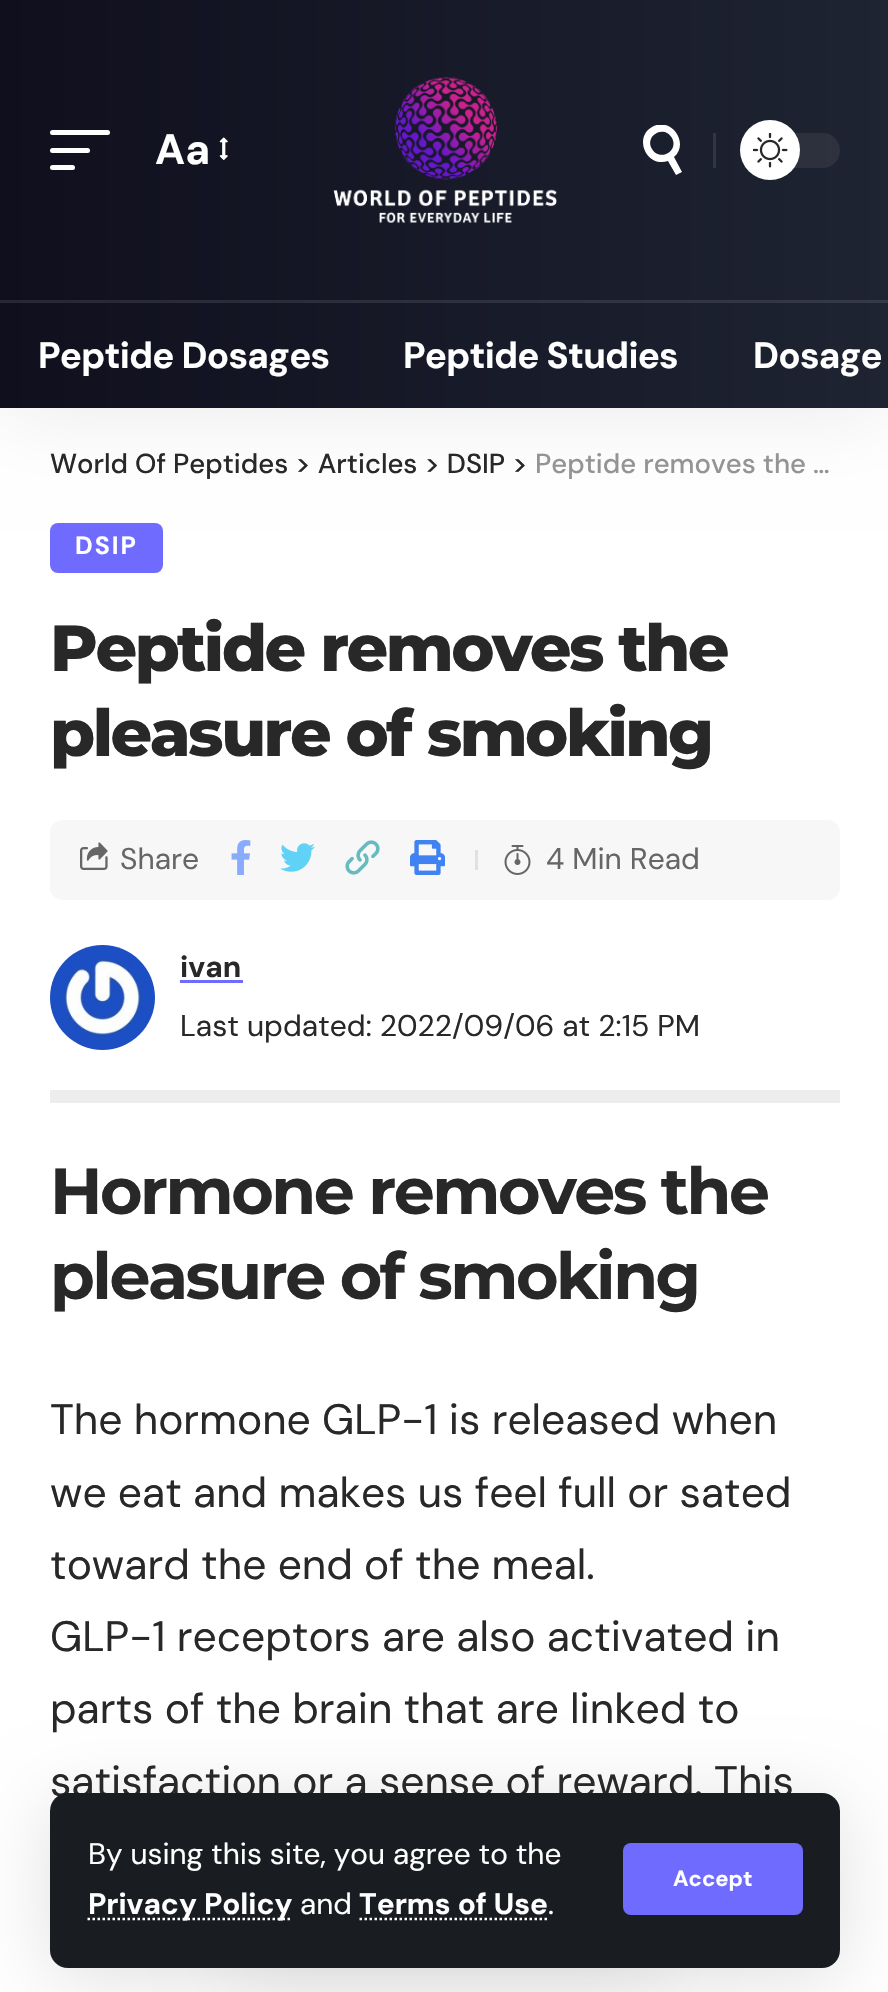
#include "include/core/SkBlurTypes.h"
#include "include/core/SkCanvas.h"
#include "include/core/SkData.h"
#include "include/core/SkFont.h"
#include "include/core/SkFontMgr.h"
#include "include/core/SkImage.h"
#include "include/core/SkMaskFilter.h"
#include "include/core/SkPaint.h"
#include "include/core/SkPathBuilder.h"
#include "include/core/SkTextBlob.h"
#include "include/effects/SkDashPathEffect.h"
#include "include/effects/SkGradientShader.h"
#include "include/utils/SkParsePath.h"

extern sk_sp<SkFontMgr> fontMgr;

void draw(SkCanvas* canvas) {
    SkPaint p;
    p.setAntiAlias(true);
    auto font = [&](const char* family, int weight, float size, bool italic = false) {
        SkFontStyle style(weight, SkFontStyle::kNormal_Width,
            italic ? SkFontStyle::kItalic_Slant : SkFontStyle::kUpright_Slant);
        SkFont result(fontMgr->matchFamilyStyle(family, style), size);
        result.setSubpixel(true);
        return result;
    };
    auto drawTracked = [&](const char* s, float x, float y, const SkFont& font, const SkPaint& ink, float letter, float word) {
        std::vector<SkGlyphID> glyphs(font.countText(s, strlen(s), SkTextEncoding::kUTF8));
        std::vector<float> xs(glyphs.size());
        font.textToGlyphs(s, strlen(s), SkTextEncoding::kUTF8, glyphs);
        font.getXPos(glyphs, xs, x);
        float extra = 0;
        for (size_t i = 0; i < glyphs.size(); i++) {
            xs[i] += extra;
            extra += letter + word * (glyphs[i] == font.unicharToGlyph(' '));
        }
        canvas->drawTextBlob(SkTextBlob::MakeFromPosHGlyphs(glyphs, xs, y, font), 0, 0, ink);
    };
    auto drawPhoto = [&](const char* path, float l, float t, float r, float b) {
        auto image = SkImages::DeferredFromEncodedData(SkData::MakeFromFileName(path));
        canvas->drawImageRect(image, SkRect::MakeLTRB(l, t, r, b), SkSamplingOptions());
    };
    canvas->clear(0xFFFFFFFF);
    p.setColor(0xFF706BFF);
    canvas->drawRoundRect(SkRect::MakeLTRB(50, 523, 163, 573), 8, 8, p);
    p.setColor(0x12000000);
    p.setMaskFilter(SkMaskFilter::MakeBlur(kNormal_SkBlurStyle, 37.5f));
    canvas->drawRect(SkRect::MakeLTRB(0, 10, 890, 418), p);
    p.setMaskFilter(nullptr);
    {
        const SkColor colors[] = {0xFF100F1E, 0xFF1E2432};
        const float stops[] = {0, 1};
        const SkPoint ends[] = {{0, 204}, {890, 204}};
        p.setShader(SkGradientShader::MakeLinear(ends, colors, stops, 2, SkTileMode::kClamp));
        p.setAlpha(255);
    }
    canvas->drawRect(SkRect::MakeLTRB(0, 0, 888, 408), p);
    {
        const SkColor colors[] = {0xFF282735, 0xFF353A47};
        const float stops[] = {0, 1};
        const SkPoint ends[] = {{0, 204}, {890, 204}};
        p.setShader(SkGradientShader::MakeLinear(ends, colors, stops, 2, SkTileMode::kClamp));
        p.setAlpha(255);
    }
    canvas->drawRect(SkRect::MakeLTRB(0, 300, 888, 303), p);
    p.setShader(nullptr);
    p.setColor(0xFFFFFFFF);
    canvas->drawRoundRect(SkRect::MakeLTRB(50, 130, 110, 135), 2.5f, 2.5f, p);
    canvas->drawRoundRect(SkRect::MakeLTRB(50, 148, 90, 153), 2.5f, 2.5f, p);
    canvas->drawRoundRect(SkRect::MakeLTRB(50, 165, 75, 170), 2.5f, 2.5f, p);
    auto font1 = font("DM Sans", 700, 42.5f);
    canvas->drawString("Aa", 155, 164, font1, p);
    drawPhoto("media/1.png", 219, 137, 228, 160);
    drawPhoto("media/2.png", 333, 77, 557, 223);
    canvas->save();
    canvas->clipRect(SkRect::MakeLTRB(638, 125, 688, 175));
    canvas->drawPath(SkPathBuilder().moveTo(652, 127).cubicTo(633, 138, 647, 168, 668, 161).lineTo(676, 175).lineTo(682, 172).lineTo(674, 157).cubicTo(690, 143, 671, 116, 652, 127).close().moveTo(672, 138).cubicTo(679, 151, 660, 162, 652, 149).cubicTo(644, 136, 664, 124, 672, 138).close().detach(), p);
    canvas->restore();
    p.setColor(0xFF323643);
    canvas->drawRect(SkRect::MakeLTRB(713, 133, 716, 168), p);
    p.setColor(0x26888888);
    canvas->drawRoundRect(SkRect::MakeLTRB(740, 133, 840, 168), 17.5f, 17.5f, p);
    p.setColor(0xFFFFFFFF);
    canvas->drawCircle(770, 150, 30, p);
    drawPhoto("media/3.png", 753, 133, 788, 168);
    auto font2 = font("DM Sans", 700, 36.75f);
    {
        const struct { const char* s; float x, y; } items[] = {
            {"Peptide Dosages", 38, 368},
            {"Peptide Studies", 403, 368},
            {"Dosage", 753, 368},
        };
        for (auto [s, x, y] : items) {
            drawTracked(s, x, y, font2, p, -0.75f, 0);
        }
    }
    p.setColor(0x1F000000);
    p.setMaskFilter(SkMaskFilter::MakeBlur(kNormal_SkBlurStyle, 37.5f));
    canvas->drawRoundRect(SkRect::MakeLTRB(50, 1803, 840, 1978), 18, 18, p);
    p.setMaskFilter(nullptr);
    auto font3 = font("DM Sans", 400, 42.5f);
    p.setColor(0xFF282828);
    canvas->drawString("satisfaction or a sense of reward. This", 50, 1796, font3, p);
    p.setColor(0x12000000);
    p.setMaskFilter(SkMaskFilter::MakeBlur(kNormal_SkBlurStyle, 37.5f));
    canvas->drawRoundRect(SkRect::MakeLTRB(235, 1868, 655, 1980), 13, 13, p);
    p.setMaskFilter(nullptr);
    p.setColor(0xFF191C20);
    canvas->drawRoundRect(SkRect::MakeLTRB(50, 1793, 840, 1968), 18, 18, p);
    auto font4 = font("DM Sans", 400, 29.75f);
    p.setColor(0xFFFFFFFF);
    canvas->drawString("By using this site, you agree to the", 88, 1864, font4, p);
    p.setStyle(SkPaint::kStroke_Style);
    p.setStrokeWidth(2.5f);
    p.setPathEffect(SkDashPathEffect::Make({{2.5f, 2.5f}}, 0));
    canvas->drawPath(SkPathBuilder().moveTo(87.5f, 1919).lineTo(292, 1919).detach(), p);
    p.setPathEffect(nullptr);
    auto font5 = font("DM Sans", 700, 29.75f);
    p.setStyle(SkPaint::kFill_Style);
    canvas->drawString("Privacy Policy", 88, 1914, font5, p);
    canvas->drawString("and", 300, 1914, font4, p);
    canvas->drawString("Terms of Use", 359, 1914, font5, p);
    p.setStyle(SkPaint::kStroke_Style);
    p.setPathEffect(SkDashPathEffect::Make({{2.5f, 2.5f}}, 0));
    canvas->drawPath(SkPathBuilder().moveTo(359.5f, 1919).lineTo(548.5f, 1919).detach(), p);
    p.setPathEffect(nullptr);
    p.setStyle(SkPaint::kFill_Style);
    canvas->drawString(".", 548, 1914, font4, p);
    p.setColor(0xFF706BFF);
    canvas->drawRoundRect(SkRect::MakeLTRB(623, 1843, 803, 1915), 8, 8, p);
    auto font6 = font("DM Sans", 700, 22);
    p.setColor(0xFFFFFFFF);
    canvas->drawString("Accept", 673, 1886, font6, p);
    p.setColor(0xFFEDEDED);
    canvas->drawRect(SkRect::MakeLTRB(50, 1090, 840, 1103), p);
    auto font7 = font("DM Sans", 500, 27.5f);
    p.setColor(0xFF282828);
    canvas->drawString("World Of Peptides > Articles > DSIP >", 50, 473, font7, p);
    p.setColor(0xFF949494);
    canvas->drawString("Peptide removes the …", 535, 473, font7, p);
    auto font8 = font("DM Sans", 700, 25);
    p.setColor(0xFFFFFFFF);
    drawTracked("DSIP", 75, 554, font8, p, 2, 0);
    auto font9 = font("Montserrat", 800, 65);
    p.setColor(0xFF282828);
    drawTracked("Peptide removes the", 50, 671, font9, p, -2.5f, 0);
    drawTracked("pleasure of smoking", 50, 756, font9, p, -2.5f, 0);
    p.setColor(0xFFF7F7F7);
    canvas->drawRoundRect(SkRect::MakeLTRB(50, 820, 840, 900), 13, 13, p);
    drawPhoto("media/4.png", 80, 842, 108, 870);
    auto font10 = font("DM Sans", 400, 30);
    p.setColor(0xFF666666);
    canvas->drawString("Share", 120, 869, font10, p);
    drawPhoto("media/5.png", 231, 840, 251, 875);
    drawPhoto("media/6.png", 280, 843, 315, 872);
    drawPhoto("media/7.png", 345, 840, 380, 875);
    drawPhoto("media/8.png", 410, 840, 445, 875);
    p.setColor(0xFFE1E1E1);
    canvas->drawRect(SkRect::MakeLTRB(475, 850, 478, 870), p);
    drawPhoto("media/9.png", 504, 845, 531, 875);
    p.setColor(0xFF666666);
    canvas->drawString("4 Min Read", 546, 869, font10, p);
    drawPhoto("media/10.png", 50, 945, 155, 1050);
    auto font11 = font("DM Sans", 700, 30);
    p.setColor(0xFF282828);
    canvas->drawString("ivan", 180, 977, font11, p);
    p.setColor(0xFF706BFF);
    canvas->drawRect(SkRect::MakeLTRB(180, 980, 243, 983), p);
    p.setColor(0xFF282828);
    canvas->drawString("Last updated: 2022/09/06 at 2:15 PM", 180, 1036, font10, p);
    auto font12 = font("Montserrat", 700, 65);
    drawTracked("Hormone removes the", 50, 1214, font12, p, -2.5f, 0);
    drawTracked("pleasure of smoking", 50, 1299, font12, p, -2.5f, 0);
    {
        const struct { const char* s; float x, y; } items[] = {
            {"The hormone GLP-1 is released when", 50, 1434},
            {"we eat and makes us feel full or sated", 50, 1507},
            {"toward the end of the meal.", 50, 1579},
            {"GLP-1 receptors are also activated in", 50, 1651},
            {"parts of the brain that are linked to", 50, 1723},
        };
        for (auto [s, x, y] : items) {
            canvas->drawString(s, x, y, font3, p);
        }
    }
}
